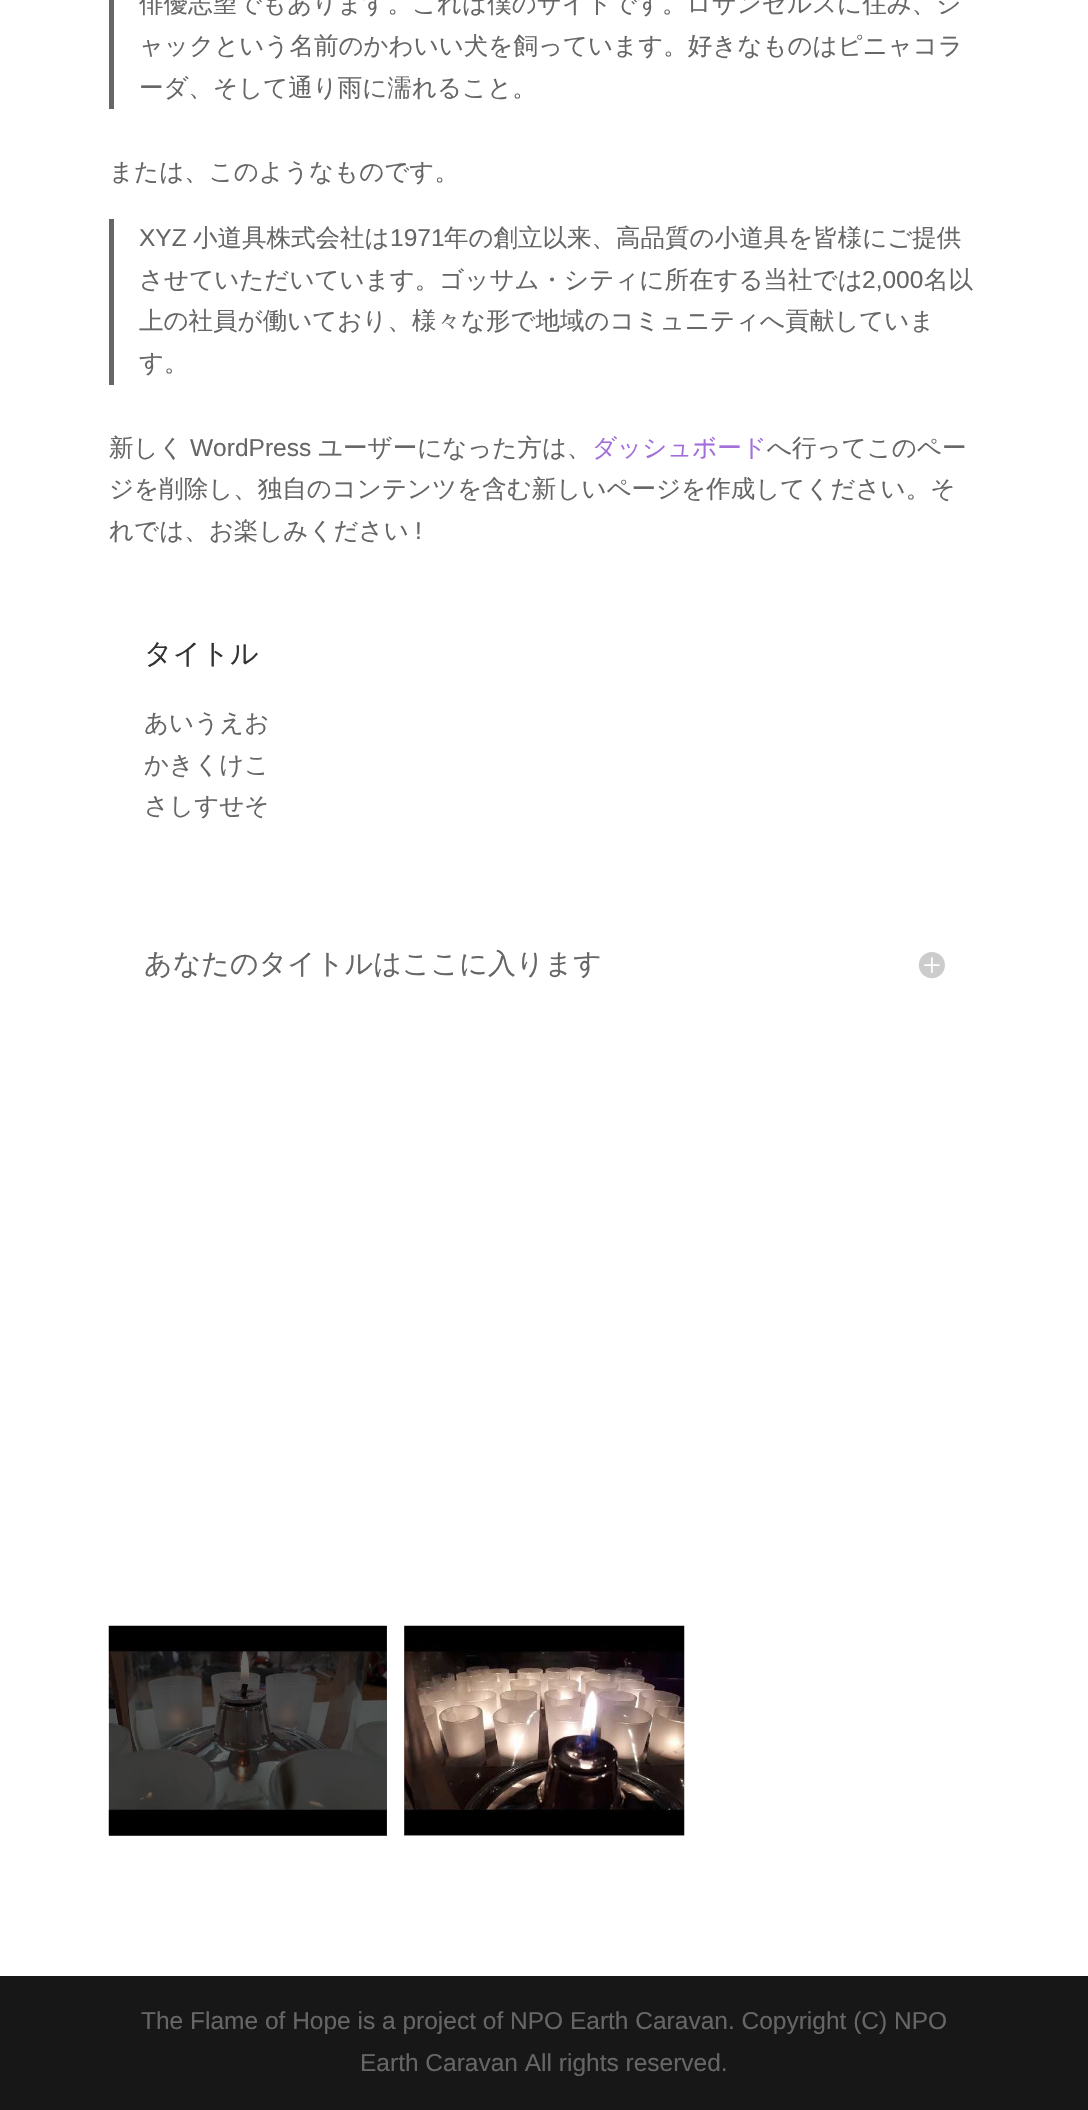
#include "include/core/SkBlurTypes.h"
#include "include/core/SkCanvas.h"
#include "include/core/SkData.h"
#include "include/core/SkFont.h"
#include "include/core/SkFontMgr.h"
#include "include/core/SkImage.h"
#include "include/core/SkMaskFilter.h"
#include "include/core/SkPaint.h"
#include "include/core/SkPathBuilder.h"
#include "include/core/SkTextBlob.h"
#include "include/effects/SkDashPathEffect.h"
#include "include/effects/SkGradientShader.h"
#include "include/utils/SkParsePath.h"

extern sk_sp<SkFontMgr> fontMgr;

void draw(SkCanvas* canvas) {
    SkPaint p;
    p.setAntiAlias(true);
    auto font = [&](const char* family, int weight, float size, bool italic = false) {
        SkFontStyle style(weight, SkFontStyle::kNormal_Width,
            italic ? SkFontStyle::kItalic_Slant : SkFontStyle::kUpright_Slant);
        SkFont result(fontMgr->matchFamilyStyle(family, style), size);
        result.setSubpixel(true);
        return result;
    };
    auto drawPhoto = [&](const char* path, float l, float t, float r, float b) {
        auto image = SkImages::DeferredFromEncodedData(SkData::MakeFromFileName(path));
        canvas->drawImageRect(image, SkRect::MakeLTRB(l, t, r, b), SkSamplingOptions());
    };
    canvas->clear(0xFFFFFFFF);
    p.setColor(0xFF666666);
    canvas->drawRect(SkRect::MakeLTRB(109, 0, 114, 109), p);
    auto font1 = font("WenQuanYi Zen Hei", 500, 24.5f);
    {
        const struct { const char* s; float x, y; } items[] = {
            {"俳優志望でもあります。これは僕のサイトです。ロサンゼルスに住み、ジ", 139, 12},
            {"ャックという名前のかわいい犬を飼っています。好きなものはピニャコラ", 139, 54},
            {"ーダ、そして通り雨に濡れること。", 139, 96},
            {"または、このようなものです。", 109, 180},
        };
        for (auto [s, x, y] : items) {
            canvas->drawString(s, x, y, font1, p);
        }
    }
    canvas->drawRect(SkRect::MakeLTRB(109, 219, 114, 385), p);
    auto font2 = font("Liberation Sans", 400, 24.5f);
    canvas->drawString("XYZ", 139, 246, font2, p);
    canvas->drawString("小道具株式会社は", 193, 246, font1, p);
    canvas->drawString("1971", 390, 246, font2, p);
    canvas->drawString("年の創立以来、高品質の小道具を皆様にご提供", 444, 246, font1, p);
    canvas->drawString("させていただいています。ゴッサム・シティに所在する当社では", 139, 288, font1, p);
    canvas->drawString("2,000", 862, 288, font2, p);
    {
        const struct { const char* s; float x, y; } items[] = {
            {"名以", 924, 288},
            {"上の社員が働いており、様々な形で地域のコミュニティへ貢献していま", 139, 329},
            {"す。", 139, 371},
            {"新しく", 109, 456},
        };
        for (auto [s, x, y] : items) {
            canvas->drawString(s, x, y, font1, p);
        }
    }
    canvas->drawString("WordPress", 190, 456, font2, p);
    canvas->drawString("ユーザーになった方は、", 318, 456, font1, p);
    p.setColor(0xFFA26EDA);
    canvas->drawString("ダッシュボード", 592, 456, font1, p);
    p.setColor(0xFF666666);
    {
        const struct { const char* s; float x, y; } items[] = {
            {"へ行ってこのペー", 767, 456},
            {"ジを削除し、独自のコンテンツを含む新しいページを作成してください。そ", 109, 497},
            {"れでは、お楽しみください", 109, 539},
        };
        for (auto [s, x, y] : items) {
            canvas->drawString(s, x, y, font1, p);
        }
    }
    canvas->drawString("!", 415, 539, font2, p);
    auto font3 = font("WenQuanYi Zen Hei", 500, 28);
    p.setColor(0xFF333333);
    canvas->drawString("タイトル", 144, 663, font3, p);
    p.setColor(0xFF666666);
    {
        const struct { const char* s; float x, y; } items[] = {
            {"あいうえお", 144, 731},
            {"かきくけこ", 144, 773},
            {"さしすせそ", 144, 814},
        };
        for (auto [s, x, y] : items) {
            canvas->drawString(s, x, y, font1, p);
        }
    }
    canvas->drawString("あなたのタイトルはここに入ります", 144, 973, font3, p);
    drawPhoto("media/1.png", 918, 952, 945, 979);
    p.setColor(0xFF4C4C4C);
    canvas->drawRect(SkRect::MakeLTRB(109, 1626, 387, 1836), p);
    drawPhoto("media/2.png", 108, 1625, 387, 1836);
    p.setColor(0xFFBFBFBF);
    canvas->drawRect(SkRect::MakeLTRB(404, 1626, 684, 1836), p);
    drawPhoto("media/3.png", 404, 1625, 685, 1836);
    p.setColor(0xFF171717);
    canvas->drawRect(SkRect::MakeLTRB(0, 1976, 1088, 2110), p);
    p.setColor(0xFF666666);
    canvas->drawString("The Flame of Hope is a project of NPO Earth Caravan. Copyright (C) NPO", 141, 2029, font2, p);
    canvas->drawString("Earth Caravan All rights reserved.", 360, 2071, font2, p);
}
